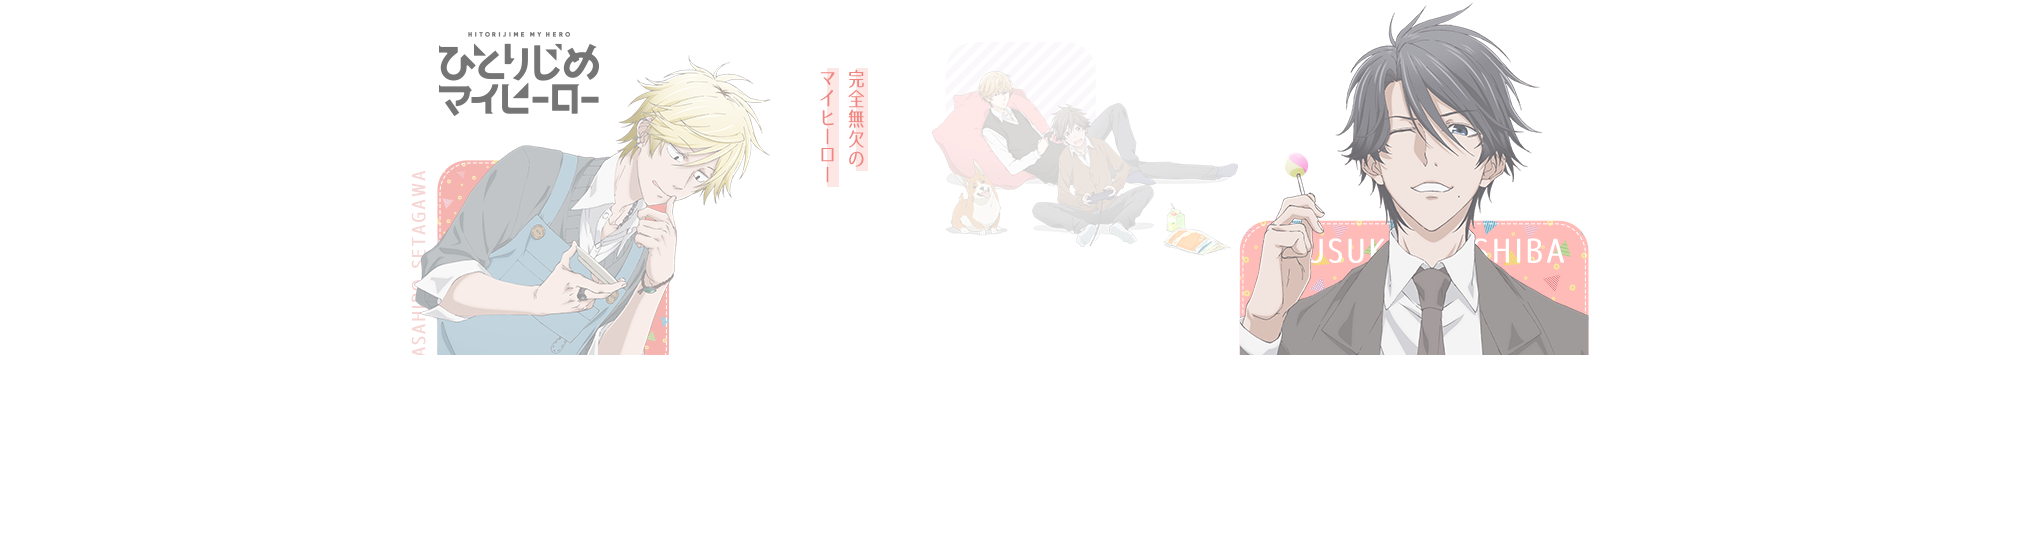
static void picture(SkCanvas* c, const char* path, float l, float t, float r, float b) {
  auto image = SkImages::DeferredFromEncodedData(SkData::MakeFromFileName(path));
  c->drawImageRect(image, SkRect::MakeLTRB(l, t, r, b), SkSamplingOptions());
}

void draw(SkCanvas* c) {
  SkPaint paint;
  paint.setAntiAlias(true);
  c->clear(0xffffffff);
  picture(c, "img_04.png", 411, 55, 771, 355);
  picture(c, "img_01.png", 439, 32, 599, 116);
  picture(c, "img_02.png", 932, 42, 1238, 256);
  picture(c, "img_03.png", 1239, 2, 1589, 355);
  picture(c, "img_05.png", 820, 68, 868, 187);
}
